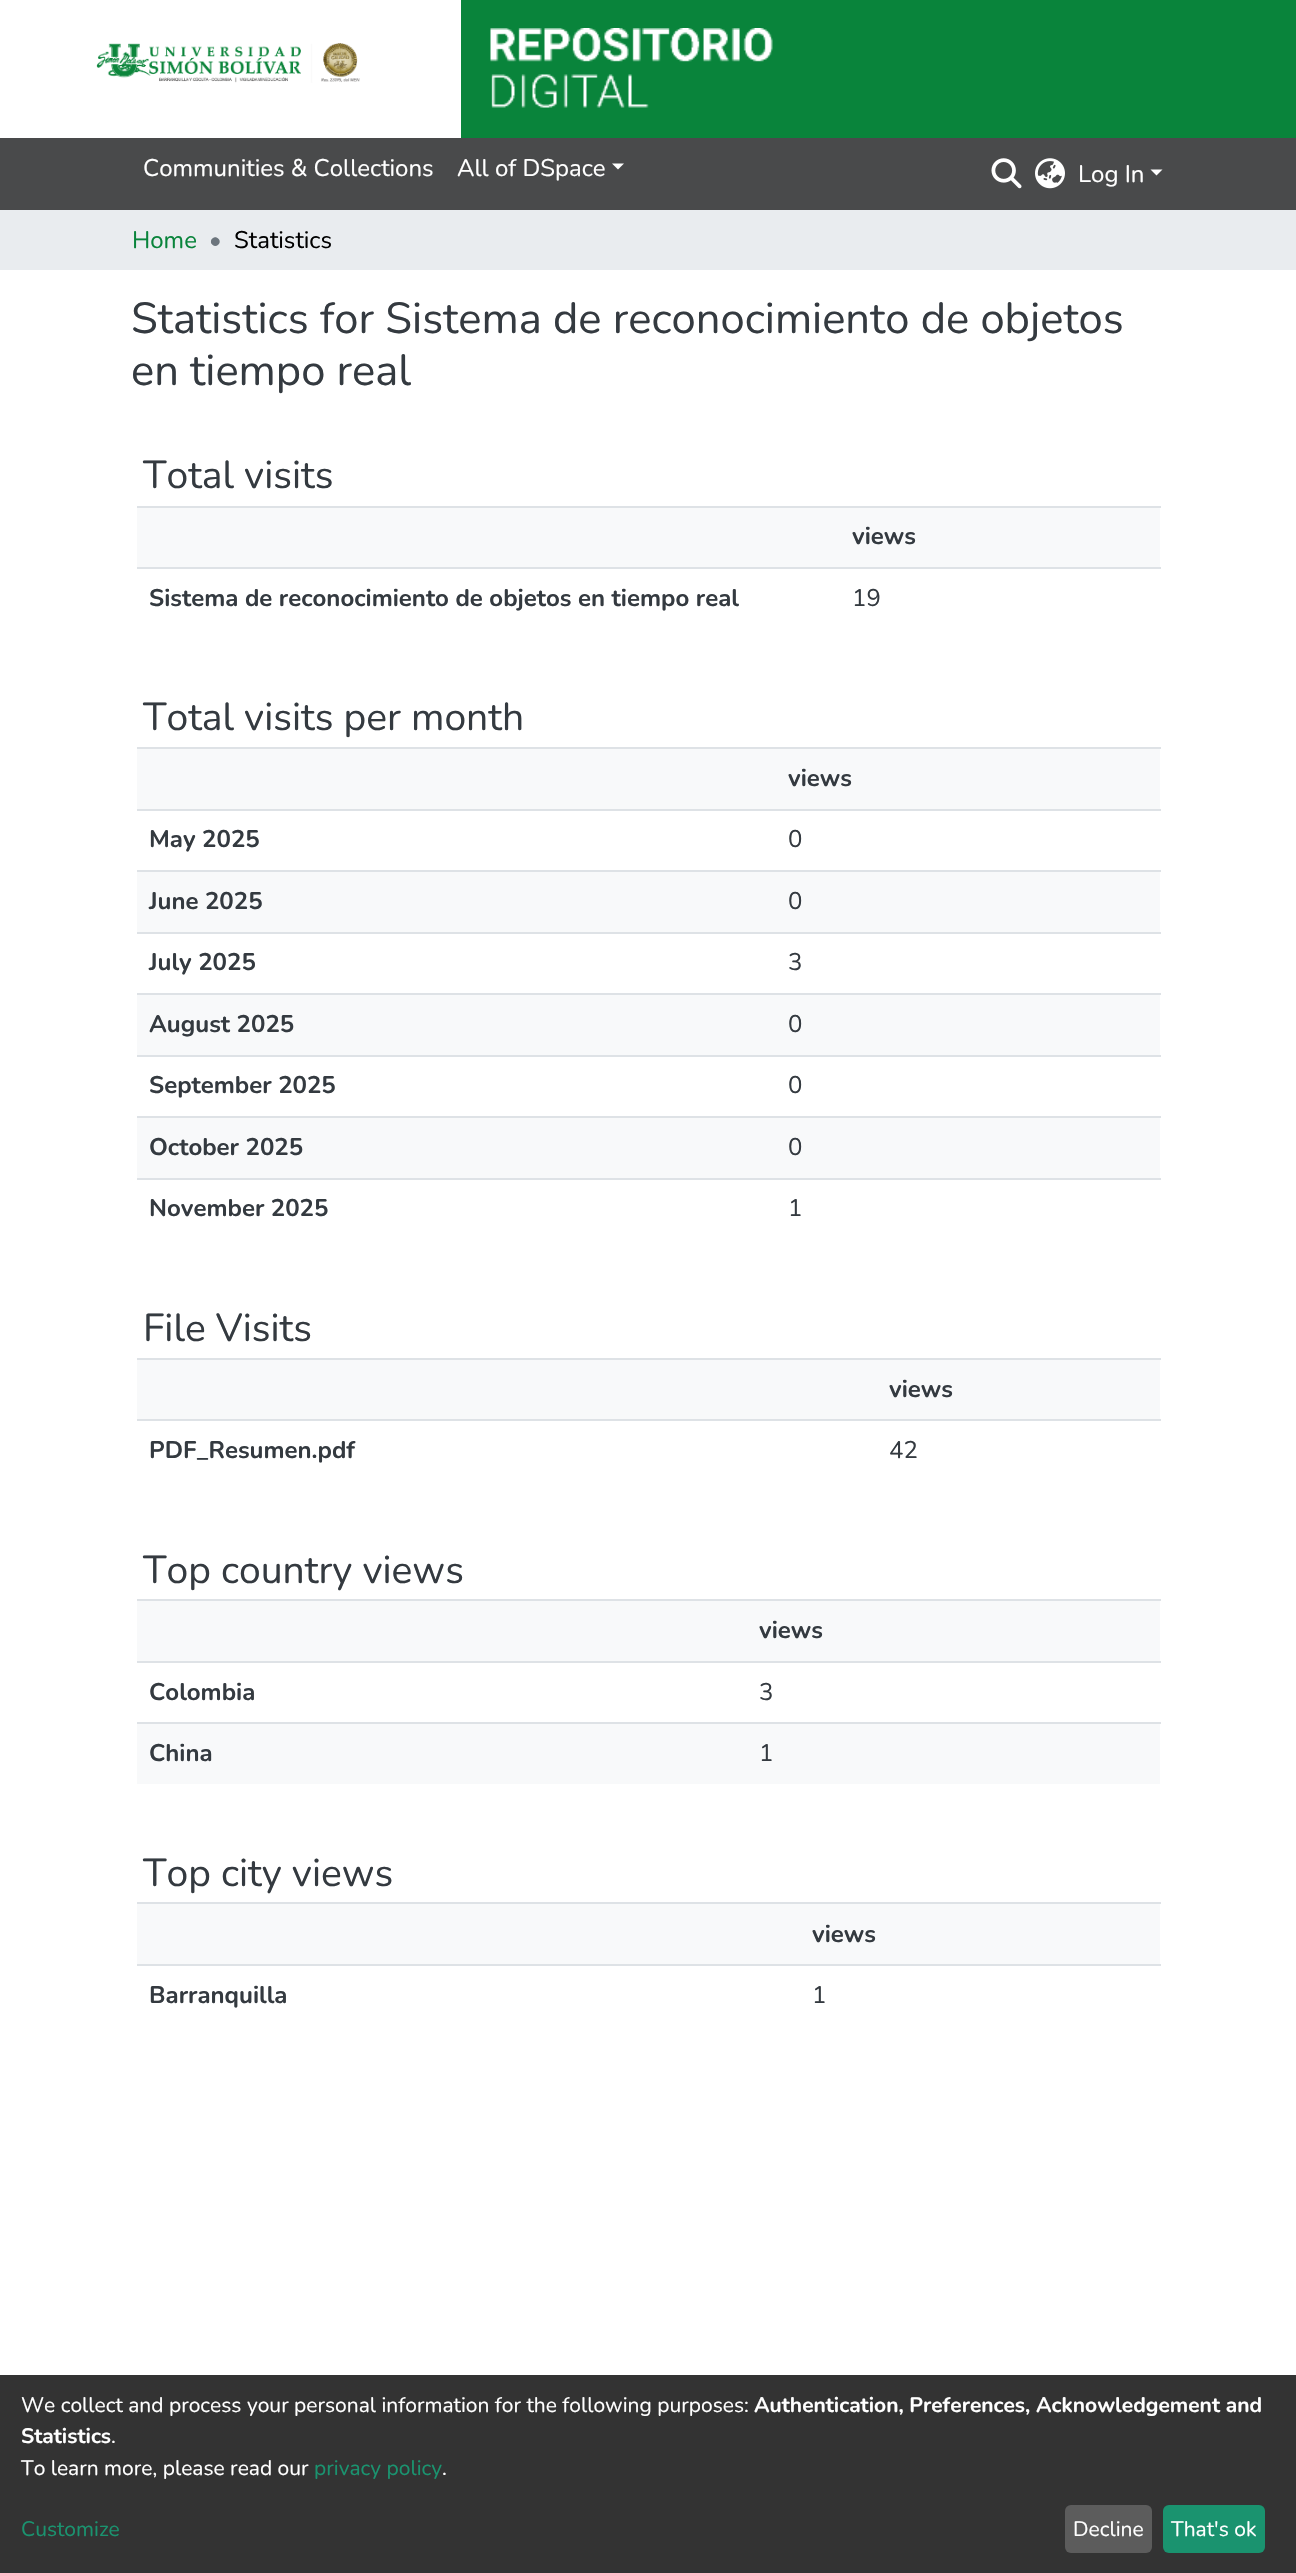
static SkFont makeFont(const char* family, int weight, float size, bool italic = false) {
  SkFontStyle style(weight, SkFontStyle::kNormal_Width,
    italic ? SkFontStyle::kItalic_Slant : SkFontStyle::kUpright_Slant);
  SkFont result(fontMgr->matchFamilyStyle(family, style), size);
  result.setSubpixel(true);
  return result;
}

static void text(SkCanvas* c, const char* s, float x, float y, const SkFont& font, SkColor color) {
  SkPaint ink(SkColor4f::FromColor(color));
  ink.setAntiAlias(true);
  c->drawString(s, x, y, font, ink);
}

static void box(SkCanvas* c, float l, float t, float r, float b, SkColor color) {
  SkPaint ink(SkColor4f::FromColor(color));
  ink.setAntiAlias(true);
  c->drawRect(SkRect::MakeLTRB(l, t, r, b), ink);
}

static void roundBox(SkCanvas* c, float l, float t, float r, float b, float radius, SkColor color) {
  SkPaint ink(SkColor4f::FromColor(color));
  ink.setAntiAlias(true);
  c->drawRoundRect(SkRect::MakeLTRB(l, t, r, b), radius, radius, ink);
}

static void picture(SkCanvas* c, const char* path, float l, float t, float r, float b) {
  auto image = SkImages::DeferredFromEncodedData(SkData::MakeFromFileName(path));
  c->drawImageRect(image, SkRect::MakeLTRB(l, t, r, b), SkSamplingOptions());
}

void draw(SkCanvas* c) {
  SkPaint paint;
  paint.setAntiAlias(true);
  c->clear(0xffffffff);
  box(c, 461, 0, 1296, 138, 0xff09843b);
  picture(c, "img_01.png", 96, 43, 360, 83);
  picture(c, "img_02.png", 490, 28, 773, 108);
  box(c, 0, 138, 1296, 210, 0xff494a4b);
  SkFont face1 = makeFont("Nunito", 400, 24);
  text(c, "Communities & Collections", 143, 176, face1, 0xffffffff);
  text(c, "All of DSpace", 457, 176, face1, 0xffffffff);
  paint.setColor(0xffffffff);
  c->drawPath(SkPathBuilder().moveTo(612, 163.5f).lineTo(624, 163.5f).lineTo(618, 169.5f).close().detach(), paint);
  picture(c, "img_03.png", 991, 158, 1022, 189);
  picture(c, "img_04.png", 1035, 158, 1065, 189);
  text(c, "Log In", 1078, 182, face1, 0xffffffff);
  c->drawPath(SkPathBuilder().moveTo(1150.5f, 169.5f).lineTo(1162.5f, 169.5f).lineTo(1156.5f, 175.5f).close().detach(), paint);
  box(c, 0, 210, 1296, 270, 0xffe9ecef);
  text(c, "Home", 132, 248, face1, 0xff09843b);
  text(c, "•", 209, 248, face1, 0xff6c757d);
  text(c, "Statistics", 234, 248, face1, 0xff000000);
  SkFont face2 = makeFont("Nunito", 400, 43.5f);
  text(c, "Statistics for Sistema de reconocimiento de objetos", 131, 333, face2, 0xff343a40);
  text(c, "en tiempo real", 131, 385, face2, 0xff343a40);
  SkFont face3 = makeFont("Nunito", 400, 39);
  text(c, "Total visits", 143, 488, face3, 0xff343a40);
  box(c, 137, 508, 1160, 567, 0xfff8f9fa);
  box(c, 137, 506, 1161, 508, 0xffdee2e6);
  SkFont face4 = makeFont("Nunito", 700, 24);
  text(c, "views", 852, 544, face4, 0xff343a40);
  text(c, "Sistema de reconocimiento de objetos en tiempo real", 149, 606, face4, 0xff343a40);
  box(c, 137, 567, 1161, 569, 0xffdee2e6);
  text(c, "19", 852, 606, face1, 0xff343a40);
  text(c, "Total visits per month", 143, 730, face3, 0xff343a40);
  box(c, 137, 749, 1160, 809, 0xfff8f9fa);
  box(c, 137, 747, 1161, 749, 0xffdee2e6);
  text(c, "views", 788, 786, face4, 0xff343a40);
  text(c, "May 2025", 149, 847, face4, 0xff343a40);
  box(c, 137, 809, 1161, 811, 0xffdee2e6);
  text(c, "0", 788, 847, face1, 0xff343a40);
  box(c, 137, 872, 1160, 932, 0xfff8f9fa);
  text(c, "June 2025", 149, 909, face4, 0xff343a40);
  box(c, 137, 870, 1161, 872, 0xffdee2e6);
  text(c, "0", 788, 909, face1, 0xff343a40);
  text(c, "July 2025", 149, 970, face4, 0xff343a40);
  box(c, 137, 932, 1161, 934, 0xffdee2e6);
  text(c, "3", 788, 970, face1, 0xff343a40);
  box(c, 137, 995, 1160, 1055, 0xfff8f9fa);
  text(c, "August 2025", 149, 1032, face4, 0xff343a40);
  box(c, 137, 993, 1161, 995, 0xffdee2e6);
  text(c, "0", 788, 1032, face1, 0xff343a40);
  text(c, "September 2025", 149, 1093, face4, 0xff343a40);
  box(c, 137, 1055, 1161, 1057, 0xffdee2e6);
  text(c, "0", 788, 1093, face1, 0xff343a40);
  box(c, 137, 1118, 1160, 1178, 0xfff8f9fa);
  text(c, "October 2025", 149, 1155, face4, 0xff343a40);
  box(c, 137, 1116, 1161, 1118, 0xffdee2e6);
  text(c, "0", 788, 1155, face1, 0xff343a40);
  text(c, "November 2025", 149, 1216, face4, 0xff343a40);
  box(c, 137, 1178, 1161, 1180, 0xffdee2e6);
  text(c, "1", 788, 1216, face1, 0xff343a40);
  text(c, "File Visits", 143, 1341, face3, 0xff343a40);
  box(c, 137, 1360, 1160, 1419, 0xfff8f9fa);
  box(c, 137, 1358, 1161, 1360, 0xffdee2e6);
  text(c, "views", 889, 1397, face4, 0xff343a40);
  text(c, "PDF_Resumen.pdf", 149, 1458, face4, 0xff343a40);
  box(c, 137, 1419, 1161, 1421, 0xffdee2e6);
  text(c, "42", 889, 1458, face1, 0xff343a40);
  text(c, "Top country views", 143, 1583, face3, 0xff343a40);
  box(c, 137, 1601, 1160, 1661, 0xfff8f9fa);
  box(c, 137, 1599, 1161, 1601, 0xffdee2e6);
  text(c, "views", 759, 1638, face4, 0xff343a40);
  text(c, "Colombia", 149, 1700, face4, 0xff343a40);
  box(c, 137, 1661, 1161, 1663, 0xffdee2e6);
  text(c, "3", 759, 1700, face1, 0xff343a40);
  box(c, 137, 1724, 1160, 1784, 0xfff8f9fa);
  text(c, "China", 149, 1761, face4, 0xff343a40);
  box(c, 137, 1722, 1161, 1724, 0xffdee2e6);
  text(c, "1", 759, 1761, face1, 0xff343a40);
  text(c, "Top city views", 143, 1886, face3, 0xff343a40);
  box(c, 137, 1904, 1160, 1964, 0xfff8f9fa);
  box(c, 137, 1902, 1161, 1904, 0xffdee2e6);
  text(c, "views", 812, 1942, face4, 0xff343a40);
  text(c, "Barranquilla", 149, 2003, face4, 0xff343a40);
  box(c, 137, 1964, 1161, 1966, 0xffdee2e6);
  text(c, "1", 812, 2003, face1, 0xff343a40);
  box(c, 0, 2375, 1296, 2573, 0xff333333);
  SkFont face5 = makeFont("Nunito", 400, 21);
  text(c, "We collect and process your personal information for the following purposes:", 21, 2412, face5, 0xffffffff);
  SkFont face6 = makeFont("Nunito", 700, 21);
  text(c, "Authentication, Preferences, Acknowledgement and", 754, 2412, face6, 0xffffffff);
  text(c, "Statistics", 21, 2443, face6, 0xffffffff);
  text(c, ".", 111, 2443, face5, 0xffffffff);
  text(c, "To learn more, please read our", 21, 2475, face5, 0xffffffff);
  text(c, "privacy policy", 314, 2475, face5, 0xff1a936f);
  text(c, ".", 442, 2475, face5, 0xffffffff);
  text(c, "Customize", 21, 2536, face5, 0xff1a936f);
  roundBox(c, 1065, 2505, 1152, 2553, 6, 0xff5c5c5c);
  text(c, "Decline", 1073, 2536, face5, 0xffffffff);
  roundBox(c, 1163, 2505, 1265, 2553, 6, 0xff1a936f);
  text(c, "That's ok", 1171, 2536, face5, 0xffffffff);
}
